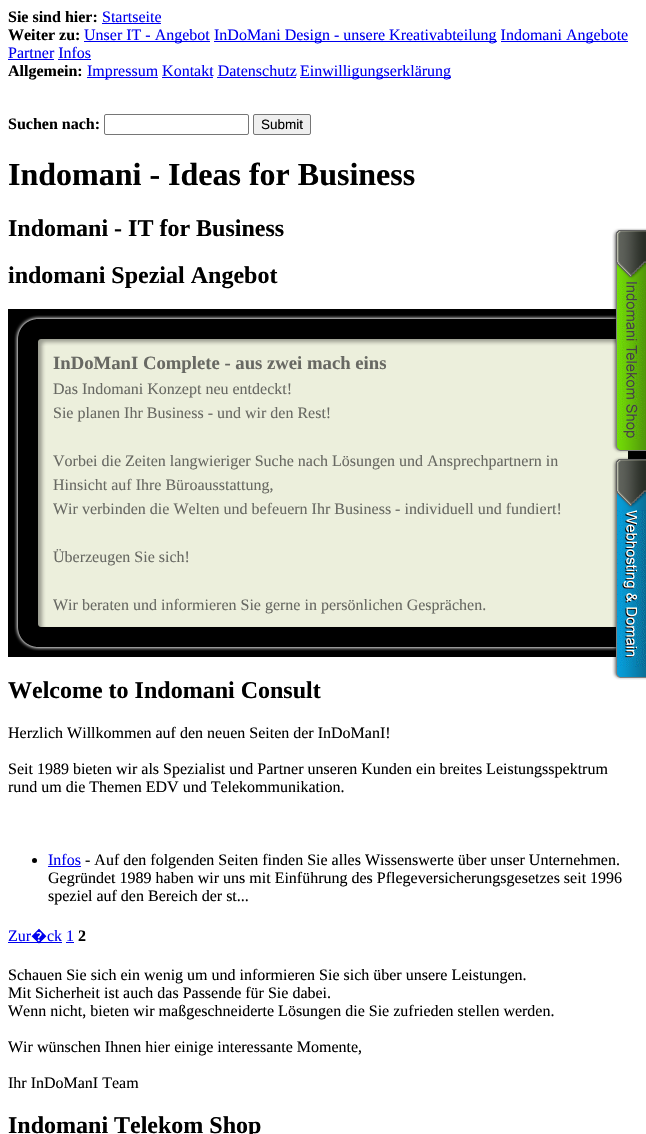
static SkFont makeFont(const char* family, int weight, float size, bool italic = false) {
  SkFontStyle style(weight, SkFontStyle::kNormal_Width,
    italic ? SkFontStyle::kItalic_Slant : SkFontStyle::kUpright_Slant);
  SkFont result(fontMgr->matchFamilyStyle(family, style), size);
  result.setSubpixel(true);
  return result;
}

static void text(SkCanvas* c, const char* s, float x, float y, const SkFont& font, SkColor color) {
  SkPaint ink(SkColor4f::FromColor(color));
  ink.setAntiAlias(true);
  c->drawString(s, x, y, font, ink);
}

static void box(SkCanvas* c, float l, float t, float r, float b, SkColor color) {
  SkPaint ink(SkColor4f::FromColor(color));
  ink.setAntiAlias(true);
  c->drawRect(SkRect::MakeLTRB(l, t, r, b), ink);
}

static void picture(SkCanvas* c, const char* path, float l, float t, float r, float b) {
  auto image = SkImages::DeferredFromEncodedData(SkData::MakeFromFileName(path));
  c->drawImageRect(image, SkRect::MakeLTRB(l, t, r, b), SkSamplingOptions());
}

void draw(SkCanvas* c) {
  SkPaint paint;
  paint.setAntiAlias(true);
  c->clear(0xffffffff);
  SkFont face1 = makeFont("Liberation Serif", 700, 16);
  text(c, "Sie sind hier:", 8, 22, face1, 0xff000000);
  SkFont face2 = makeFont("Liberation Serif", 400, 16);
  text(c, "Startseite", 102, 22, face2, 0xff0000ee);
  box(c, 102, 23, 161, 24, 0xff0000ee);
  text(c, "Weiter zu:", 8, 40, face1, 0xff000000);
  box(c, 84, 41, 210, 42, 0xff0000ee);
  text(c, "Unser IT - Angebot", 84, 40, face2, 0xff0000ee);
  box(c, 214, 41, 497, 42, 0xff0000ee);
  text(c, "InDoMani Design - unsere Kreativabteilung Indomani", 214, 40, face2, 0xff0000ee);
  box(c, 501, 41, 628, 42, 0xff0000ee);
  text(c, "Angebote", 566, 40, face2, 0xff0000ee);
  text(c, "Partner Infos", 8, 58, face2, 0xff0000ee);
  box(c, 8, 59, 54, 60, 0xff0000ee);
  box(c, 58, 59, 91, 60, 0xff0000ee);
  text(c, "Allgemein:", 8, 76, face1, 0xff000000);
  box(c, 87, 77, 158, 78, 0xff0000ee);
  text(c, "Impressum Kontakt Datenschutz", 87, 76, face2, 0xff0000ee);
  box(c, 300, 77, 451, 78, 0xff0000ee);
  text(c, "Einwilligungserklärung", 300, 76, face2, 0xff0000ee);
  box(c, 162, 77, 213, 78, 0xff0000ee);
  box(c, 217, 77, 296, 78, 0xff0000ee);
  text(c, "Suchen nach:", 8, 129, face1, 0xff000000);
  paint.setStyle(SkPaint::kStroke_Style);
  paint.setStrokeWidth(1);
  paint.setColor(0xff767676);
  c->drawRoundRect(SkRect::MakeLTRB(104.5f, 114.5f, 248.5f, 134.5f), 1.5f, 1.5f, paint);
  paint.setStyle(SkPaint::kFill_Style);
  paint.setColor(0xffefefef);
  c->drawRoundRect(SkRect::MakeLTRB(253.5f, 114.5f, 310.5f, 134.5f), 1.5f, 1.5f, paint);
  paint.setStyle(SkPaint::kStroke_Style);
  paint.setColor(0xff767676);
  c->drawRoundRect(SkRect::MakeLTRB(253.5f, 114.5f, 310.5f, 134.5f), 1.5f, 1.5f, paint);
  SkFont face3 = makeFont("Liberation Sans", 400, 13.5f);
  text(c, "Submit", 261, 129, face3, 0xff000000);
  SkFont face4 = makeFont("Liberation Serif", 700, 32);
  text(c, "Indomani - Ideas for Business", 8, 185, face4, 0xff000000);
  SkFont face5 = makeFont("Liberation Serif", 700, 24);
  text(c, "Indomani - IT for Business", 8, 236, face5, 0xff000000);
  picture(c, "img_07.png", 8, 309, 646, 657);
  picture(c, "img_08.png", 14, 309, 616, 346);
  picture(c, "img_01.png", 612, 228, 646, 440);
  picture(c, "img_02.png", 617, 281, 646, 440);
  picture(c, "img_03.png", 612, 440, 646, 453);
  picture(c, "img_09.png", 14, 624, 616, 657);
  picture(c, "img_04.png", 612, 457, 646, 667);
  picture(c, "img_05.png", 617, 510, 646, 667);
  picture(c, "img_06.png", 612, 667, 646, 680);
  text(c, "indomani Spezial Angebot", 8, 283, face5, 0xff000000);
  SkFont face6 = makeFont("Liberation Serif", 700, 18.7f);
  text(c, "InDoManI Complete - aus zwei mach eins", 53, 369, face6, 0xff686963);
  text(c, "Das Indomani Konzept neu entdeckt!", 53, 394, face2, 0xff686963);
  text(c, "Sie planen Ihr Business - und wir den Rest!", 53, 418, face2, 0xff686963);
  text(c, "Vorbei die Zeiten langwieriger Suche nach Lösungen und Ansprechpartnern in", 53, 466, face2, 0xff686963);
  text(c, "Hinsicht auf Ihre Büroausstattung,", 53, 490, face2, 0xff686963);
  text(c, "Wir verbinden die Welten und befeuern Ihr Business - individuell und fundiert!", 53, 514, face2, 0xff686963);
  text(c, "Überzeugen Sie sich!", 53, 562, face2, 0xff686963);
  text(c, "Wir beraten und informieren Sie gerne in persönlichen Gesprächen.", 53, 610, face2, 0xff686963);
  text(c, "Welcome to Indomani Consult", 8, 698, face5, 0xff000000);
  text(c, "Herzlich Willkommen auf den neuen Seiten der InDoManI!", 8, 738, face2, 0xff000000);
  text(c, "Seit 1989 bieten wir als Spezialist und Partner unseren Kunden ein breites Leistungsspektrum", 8, 774, face2, 0xff000000);
  text(c, "rund um die Themen EDV und Telekommunikation.", 8, 792, face2, 0xff000000);
  paint.setStyle(SkPaint::kFill_Style);
  paint.setColor(0xff000000);
  c->drawCircle(34.5f, 860.5f, 2.5f, paint);
  text(c, "Infos", 48, 865, face2, 0xff0000ee);
  box(c, 48, 866, 81, 867, 0xff0000ee);
  text(c, "- Auf den folgenden Seiten finden Sie alles Wissenswerte über unser Unternehmen.", 85, 865, face2, 0xff000000);
  text(c, "Gegründet 1989 haben wir uns mit Einführung des Pflegeversicherungsgesetzes seit 1996", 48, 883, face2, 0xff000000);
  text(c, "speziel auf den Bereich der st...", 48, 901, face2, 0xff000000);
  text(c, "Zur", 8, 941, face2, 0xff0000ee);
  box(c, 8, 942, 62, 943, 0xff0000ee);
  SkFont face7 = makeFont("Noto Sans", 400, 16);
  text(c, "�", 31, 941, face7, 0xff0000ee);
  text(c, "ck 1", 47, 941, face2, 0xff0000ee);
  text(c, "2", 78, 941, face1, 0xff000000);
  box(c, 66, 942, 74, 943, 0xff0000ee);
  text(c, "Schauen Sie sich ein wenig um und informieren Sie sich über unsere Leistungen.", 8, 980, face2, 0xff000000);
  text(c, "Mit Sicherheit ist auch das Passende für Sie dabei.", 8, 998, face2, 0xff000000);
  text(c, "Wenn nicht, bieten wir maßgeschneiderte Lösungen die Sie zufrieden stellen werden.", 8, 1016, face2, 0xff000000);
  text(c, "Wir wünschen Ihnen hier einige interessante Momente,", 8, 1052, face2, 0xff000000);
  text(c, "Ihr InDoManI Team", 8, 1088, face2, 0xff000000);
  text(c, "Indomani Telekom Shop", 8, 1133, face5, 0xff000000);
}
